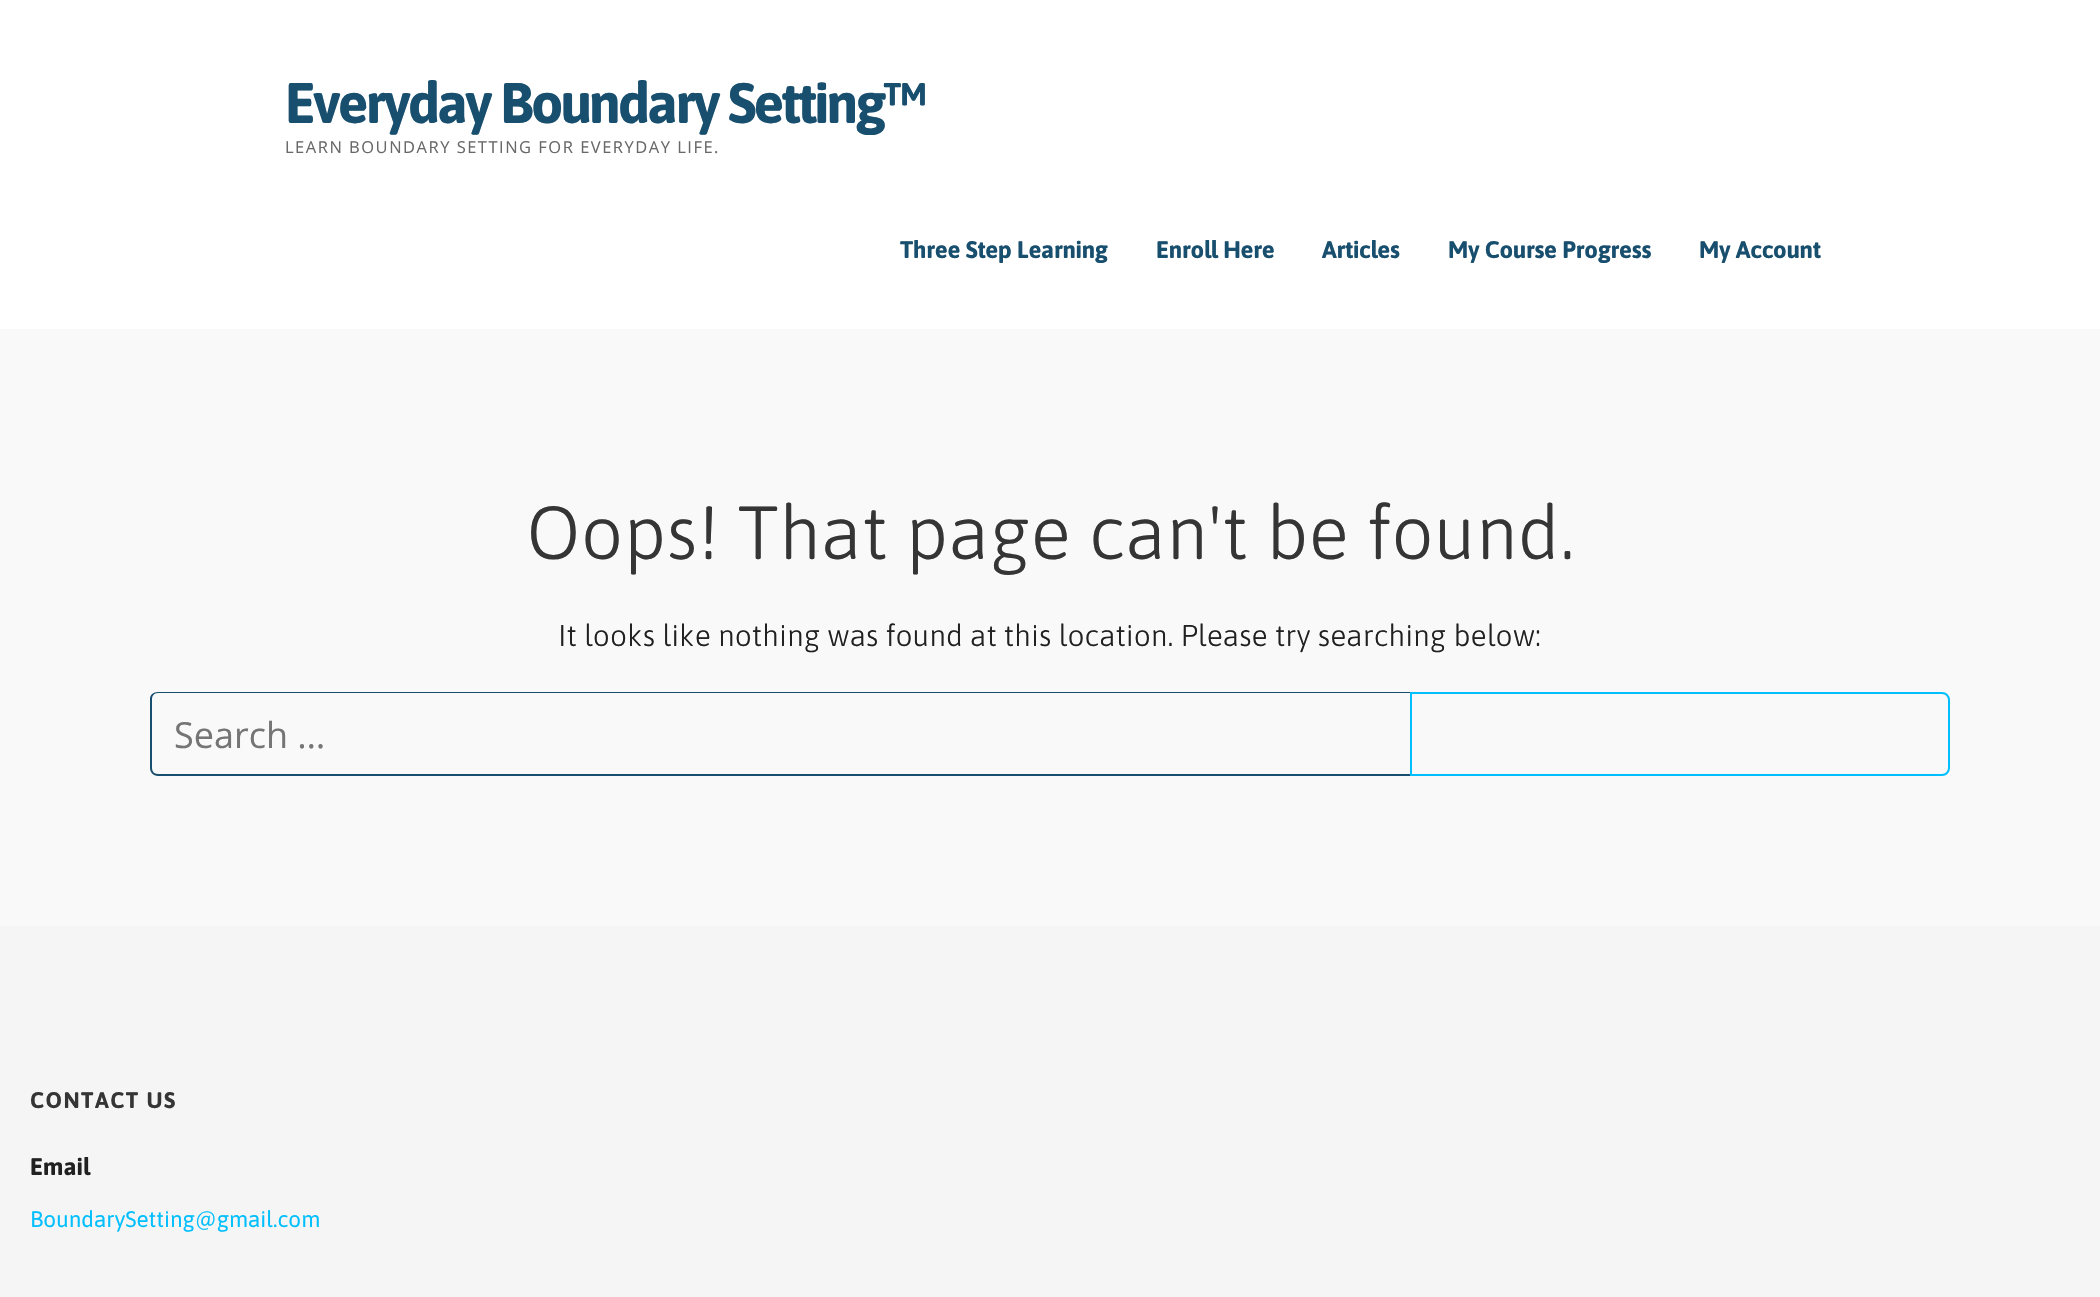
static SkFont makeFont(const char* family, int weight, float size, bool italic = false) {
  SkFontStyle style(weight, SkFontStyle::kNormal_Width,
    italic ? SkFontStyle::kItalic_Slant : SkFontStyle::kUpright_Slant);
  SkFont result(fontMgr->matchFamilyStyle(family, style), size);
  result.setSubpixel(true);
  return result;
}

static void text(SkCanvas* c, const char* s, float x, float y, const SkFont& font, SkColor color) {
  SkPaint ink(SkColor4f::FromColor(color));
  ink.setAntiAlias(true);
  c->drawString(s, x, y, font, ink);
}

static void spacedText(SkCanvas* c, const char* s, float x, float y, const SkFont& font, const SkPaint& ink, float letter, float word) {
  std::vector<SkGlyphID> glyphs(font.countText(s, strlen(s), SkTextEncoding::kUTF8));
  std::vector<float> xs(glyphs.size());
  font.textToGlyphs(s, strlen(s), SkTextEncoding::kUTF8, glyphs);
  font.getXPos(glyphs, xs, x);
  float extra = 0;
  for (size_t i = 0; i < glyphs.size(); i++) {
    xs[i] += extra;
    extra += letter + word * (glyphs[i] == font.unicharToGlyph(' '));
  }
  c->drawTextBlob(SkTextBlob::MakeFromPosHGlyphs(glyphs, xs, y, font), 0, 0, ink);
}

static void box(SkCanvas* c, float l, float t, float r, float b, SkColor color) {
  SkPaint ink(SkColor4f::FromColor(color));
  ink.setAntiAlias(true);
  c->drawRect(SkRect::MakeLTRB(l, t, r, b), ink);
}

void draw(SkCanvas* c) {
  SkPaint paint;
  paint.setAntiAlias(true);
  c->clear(0xffffffff);
  SkFont face1 = makeFont("Asap", 700, 57);
  paint.setColor(0xff194f6e);
  spacedText(c, "Everyday Boundary Setting™", 285, 123, face1, paint, -3, 0);
  SkFont face2 = makeFont("Open Sans", 400, 16.5f);
  paint.setColor(0xff686868);
  spacedText(c, "LEARN BOUNDARY SETTING FOR EVERYDAY LIFE.", 285, 153, face2, paint, 1.5f, 0);
  SkFont face3 = makeFont("Asap", 700, 24);
  paint.setColor(0xff194f6e);
  spacedText(c, "Three Step Learning", 900, 258, face3, paint, -0.25f, 0);
  spacedText(c, "Enroll Here", 1156, 258, face3, paint, -0.25f, 0);
  spacedText(c, "Articles", 1322, 258, face3, paint, -0.25f, 0);
  spacedText(c, "My Course Progress", 1448, 258, face3, paint, -0.25f, 0);
  spacedText(c, "My Account", 1699, 258, face3, paint, -0.25f, 0);
  box(c, 0, 329, 2100, 926, 0xfff9f9f9);
  SkFont face4 = makeFont("Asap", 300, 75);
  text(c, "Oops! That page can't be found.", 526, 559, face4, 0xff353535);
  SkFont face5 = makeFont("Asap", 300, 30);
  text(c, "It looks like nothing was found at this location. Please try searching below:", 558, 646, face5, 0xff212121);
  c->drawPath(SkPathBuilder(SkPathFillType::kEvenOdd).moveTo(158, 692).lineTo(1410, 692).lineTo(1410, 776).lineTo(158, 776).cubicTo(153, 776, 150, 772, 150, 768).lineTo(150, 699).cubicTo(150, 695, 153, 692, 158, 692).close().moveTo(158, 693).lineTo(1410, 693).lineTo(1410, 774).lineTo(158, 774).cubicTo(154, 774, 152, 771, 152, 768).lineTo(152, 699).cubicTo(152, 696, 154, 693, 158, 693).close().detach(), paint);
  SkFont face6 = makeFont("Open Sans", 400, 36);
  text(c, "Search …", 174, 748, face6, 0xff757575);
  paint.setStyle(SkPaint::kStroke_Style);
  paint.setStrokeWidth(2);
  paint.setColor(0xff00bfff);
  c->drawPath(SkPathBuilder().moveTo(1411, 693).lineTo(1942, 693).cubicTo(1946, 693, 1949, 696, 1949, 700).lineTo(1949, 768).cubicTo(1949, 772, 1946, 775, 1942, 775).lineTo(1411, 775).close().detach(), paint);
  box(c, 0, 926, 2100, 1297, 0xfff5f5f5);
  SkFont face7 = makeFont("Asap", 700, 22.5f);
  paint.setStyle(SkPaint::kFill_Style);
  paint.setColor(0xff353535);
  spacedText(c, "CONTACT US", 30, 1108, face7, paint, 1.5f, 0);
  text(c, "Email", 30, 1175, face3, 0xff212121);
  SkFont face8 = makeFont("Asap", 400, 22.5f);
  text(c, "BoundarySetting@gmail.com", 30, 1227, face8, 0xff00bfff);
}
